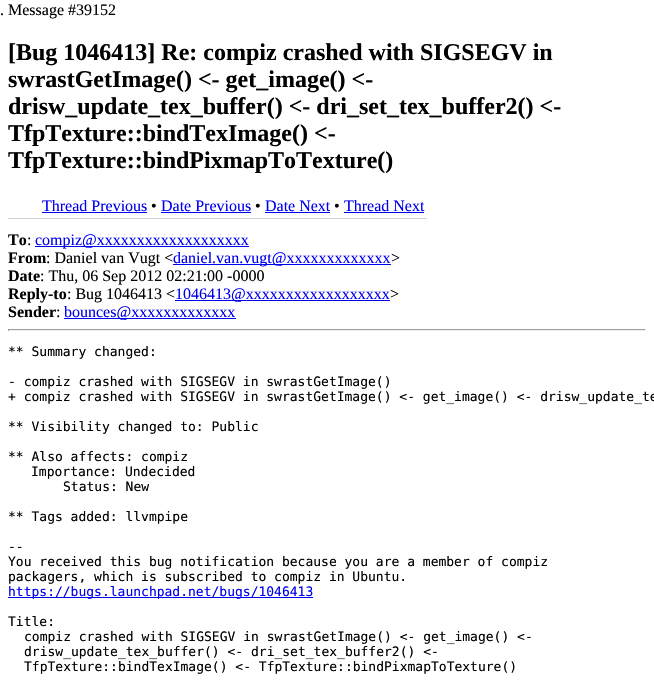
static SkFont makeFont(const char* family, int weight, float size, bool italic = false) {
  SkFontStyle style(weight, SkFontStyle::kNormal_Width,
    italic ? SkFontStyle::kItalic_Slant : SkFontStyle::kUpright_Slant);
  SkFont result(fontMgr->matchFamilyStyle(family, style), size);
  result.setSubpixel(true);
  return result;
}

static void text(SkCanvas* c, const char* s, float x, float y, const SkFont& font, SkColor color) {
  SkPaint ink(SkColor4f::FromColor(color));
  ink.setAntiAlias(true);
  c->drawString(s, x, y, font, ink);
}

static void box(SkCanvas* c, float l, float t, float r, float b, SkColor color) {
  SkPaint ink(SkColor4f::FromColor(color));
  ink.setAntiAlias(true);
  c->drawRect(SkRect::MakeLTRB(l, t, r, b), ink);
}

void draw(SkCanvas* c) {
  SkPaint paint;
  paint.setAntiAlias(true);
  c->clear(0xffffffff);
  SkFont face1 = makeFont("Liberation Serif", 400, 16);
  text(c, ". Message #39152", 0, 15, face1, 0xff000000);
  SkFont face2 = makeFont("Liberation Serif", 700, 24);
  text(c, "[Bug 1046413] Re: compiz crashed with SIGSEGV in", 8, 60, face2, 0xff000000);
  text(c, "swrastGetImage() <- get_image() <-", 8, 87, face2, 0xff000000);
  text(c, "drisw_update_tex_buffer() <- dri_set_tex_buffer2() <-", 8, 114, face2, 0xff000000);
  text(c, "TfpTexture::bindTexImage() <-", 8, 141, face2, 0xff000000);
  text(c, "TfpTexture::bindPixmapToTexture()", 8, 168, face2, 0xff000000);
  box(c, 8, 218, 427, 219, 0xffd2d2d2);
  text(c, "Thread Previous", 42, 211, face1, 0xff0000ee);
  box(c, 42, 212, 147, 213, 0xff0000ee);
  text(c, "•", 151, 211, face1, 0xff000000);
  text(c, "Date Previous", 161, 211, face1, 0xff0000ee);
  box(c, 161, 212, 251, 213, 0xff0000ee);
  text(c, "•", 255, 211, face1, 0xff000000);
  text(c, "Date Next", 265, 211, face1, 0xff0000ee);
  box(c, 265, 212, 330, 213, 0xff0000ee);
  text(c, "•", 334, 211, face1, 0xff000000);
  text(c, "Thread Next", 344, 211, face1, 0xff0000ee);
  box(c, 344, 212, 424, 213, 0xff0000ee);
  SkFont face3 = makeFont("Liberation Serif", 700, 16);
  text(c, "To", 8, 245, face3, 0xff000000);
  text(c, ":", 27, 245, face1, 0xff000000);
  box(c, 35, 246, 249, 247, 0xff0000ee);
  text(c, "compiz@xxxxxxxxxxxxxxxxxxx", 35, 245, face1, 0xff0000ee);
  text(c, "From", 8, 263, face3, 0xff000000);
  text(c, ": Daniel van Vugt <", 46, 263, face1, 0xff000000);
  box(c, 173, 264, 391, 265, 0xff0000ee);
  text(c, "daniel.van.vugt@xxxxxxxxxxxxx", 173, 263, face1, 0xff0000ee);
  text(c, ">", 391, 263, face1, 0xff000000);
  text(c, "Date", 8, 281, face3, 0xff000000);
  text(c, ": Thu, 06 Sep 2012 02:21:00 -0000", 40, 281, face1, 0xff000000);
  text(c, "Reply-to", 8, 299, face3, 0xff000000);
  text(c, ": Bug 1046413 <", 67, 299, face1, 0xff000000);
  box(c, 175, 300, 390, 301, 0xff0000ee);
  text(c, "1046413@xxxxxxxxxxxxxxxxxx", 175, 299, face1, 0xff0000ee);
  text(c, ">", 390, 299, face1, 0xff000000);
  text(c, "Sender", 8, 317, face3, 0xff000000);
  text(c, ":", 56, 317, face1, 0xff000000);
  box(c, 64, 318, 236, 319, 0xff0000ee);
  text(c, "bounces@xxxxxxxxxxxxx", 64, 317, face1, 0xff0000ee);
  box(c, 8, 329, 646, 330, 0xff9f9f9f);
  box(c, 645, 329, 646, 331, 0xffeeeeee);
  box(c, 8, 330, 646, 331, 0xffeeeeee);
  box(c, 8, 329, 9, 331, 0xff9f9f9f);
  SkFont face4 = makeFont("DejaVu Sans Mono", 400, 13);
  text(c, "** Summary changed:", 8, 356, face4, 0xff000000);
  text(c, "- compiz crashed with SIGSEGV in swrastGetImage()", 8, 386, face4, 0xff000000);
  text(c, "+ compiz crashed with SIGSEGV in swrastGetImage() <- get_image() <- drisw_update_te", 8, 401, face4, 0xff000000);
  text(c, "** Visibility changed to: Public", 8, 431, face4, 0xff000000);
  text(c, "** Also affects: compiz", 8, 461, face4, 0xff000000);
  text(c, "Importance: Undecided", 31, 476, face4, 0xff000000);
  text(c, "Status: New", 63, 491, face4, 0xff000000);
  text(c, "** Tags added: llvmpipe", 8, 521, face4, 0xff000000);
  text(c, "--", 8, 551, face4, 0xff000000);
  text(c, "You received this bug notification because you are a member of compiz", 8, 566, face4, 0xff000000);
  text(c, "packagers, which is subscribed to compiz in Ubuntu.", 8, 581, face4, 0xff000000);
  box(c, 8, 597, 313, 598, 0xff0000ee);
  text(c, "https://bugs.launchpad.net/bugs/1046413", 8, 596, face4, 0xff0000ee);
  text(c, "Title:", 8, 626, face4, 0xff000000);
  text(c, "compiz crashed with SIGSEGV in swrastGetImage() <- get_image() <-", 24, 641, face4, 0xff000000);
  text(c, "drisw_update_tex_buffer() <- dri_set_tex_buffer2() <-", 24, 656, face4, 0xff000000);
  text(c, "TfpTexture::bindTexImage() <- TfpTexture::bindPixmapToTexture()", 24, 671, face4, 0xff000000);
}
